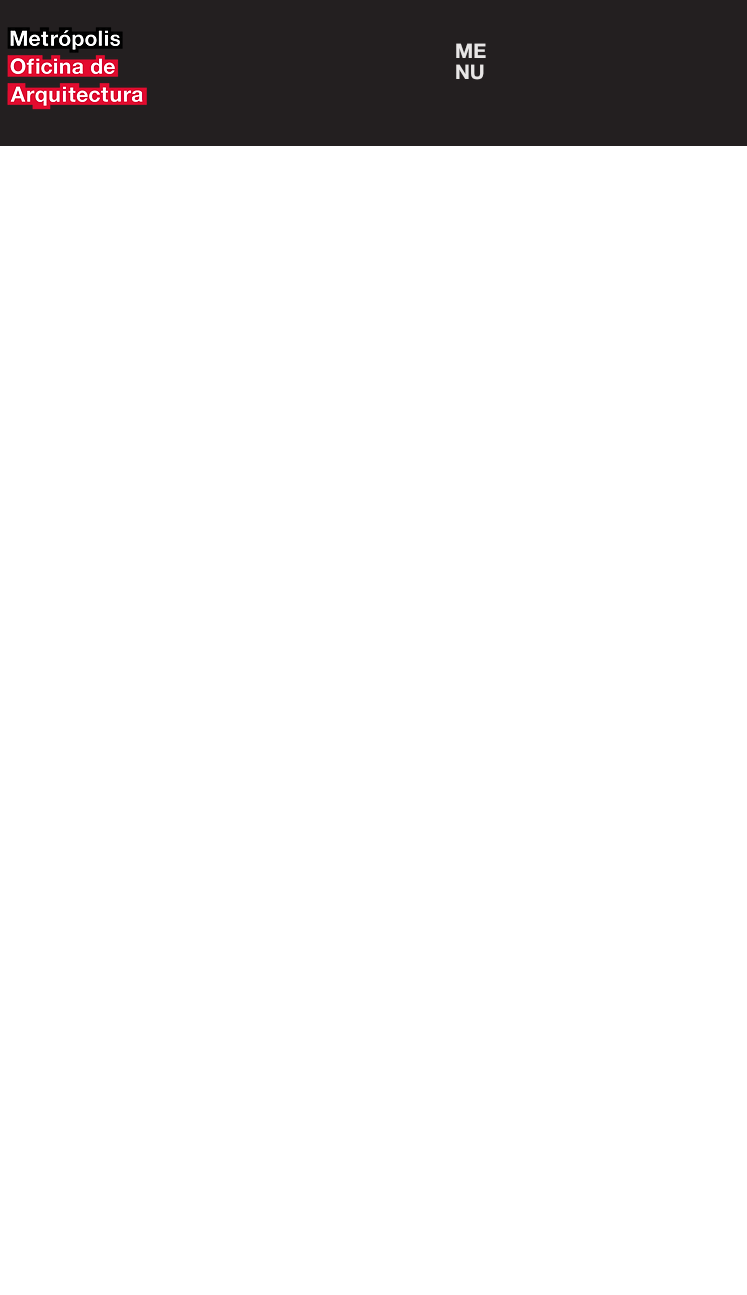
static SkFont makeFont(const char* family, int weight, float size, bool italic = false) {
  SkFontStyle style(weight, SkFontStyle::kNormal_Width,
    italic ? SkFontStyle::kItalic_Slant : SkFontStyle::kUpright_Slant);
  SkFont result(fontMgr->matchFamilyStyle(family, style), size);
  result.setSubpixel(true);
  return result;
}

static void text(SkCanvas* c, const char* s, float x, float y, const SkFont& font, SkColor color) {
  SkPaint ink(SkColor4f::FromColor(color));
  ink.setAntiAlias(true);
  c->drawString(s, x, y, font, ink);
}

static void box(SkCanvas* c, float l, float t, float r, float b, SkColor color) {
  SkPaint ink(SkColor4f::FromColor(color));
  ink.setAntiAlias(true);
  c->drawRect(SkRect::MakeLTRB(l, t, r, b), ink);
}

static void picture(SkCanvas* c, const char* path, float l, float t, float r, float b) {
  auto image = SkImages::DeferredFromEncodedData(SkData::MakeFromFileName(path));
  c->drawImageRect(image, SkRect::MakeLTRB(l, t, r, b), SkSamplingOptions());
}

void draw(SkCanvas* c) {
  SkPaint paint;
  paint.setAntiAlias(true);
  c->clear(0xffffffff);
  box(c, 0, 0, 747, 146, 0xff231f20);
  picture(c, "img_01.png", 7, 27, 147, 110);
  SkFont face1 = makeFont("Helvetica Neue", 700, 20);
  text(c, "ME", 455, 58, face1, 0xffe8e6e6);
  text(c, "NU", 455, 79, face1, 0xffe8e6e6);
}
